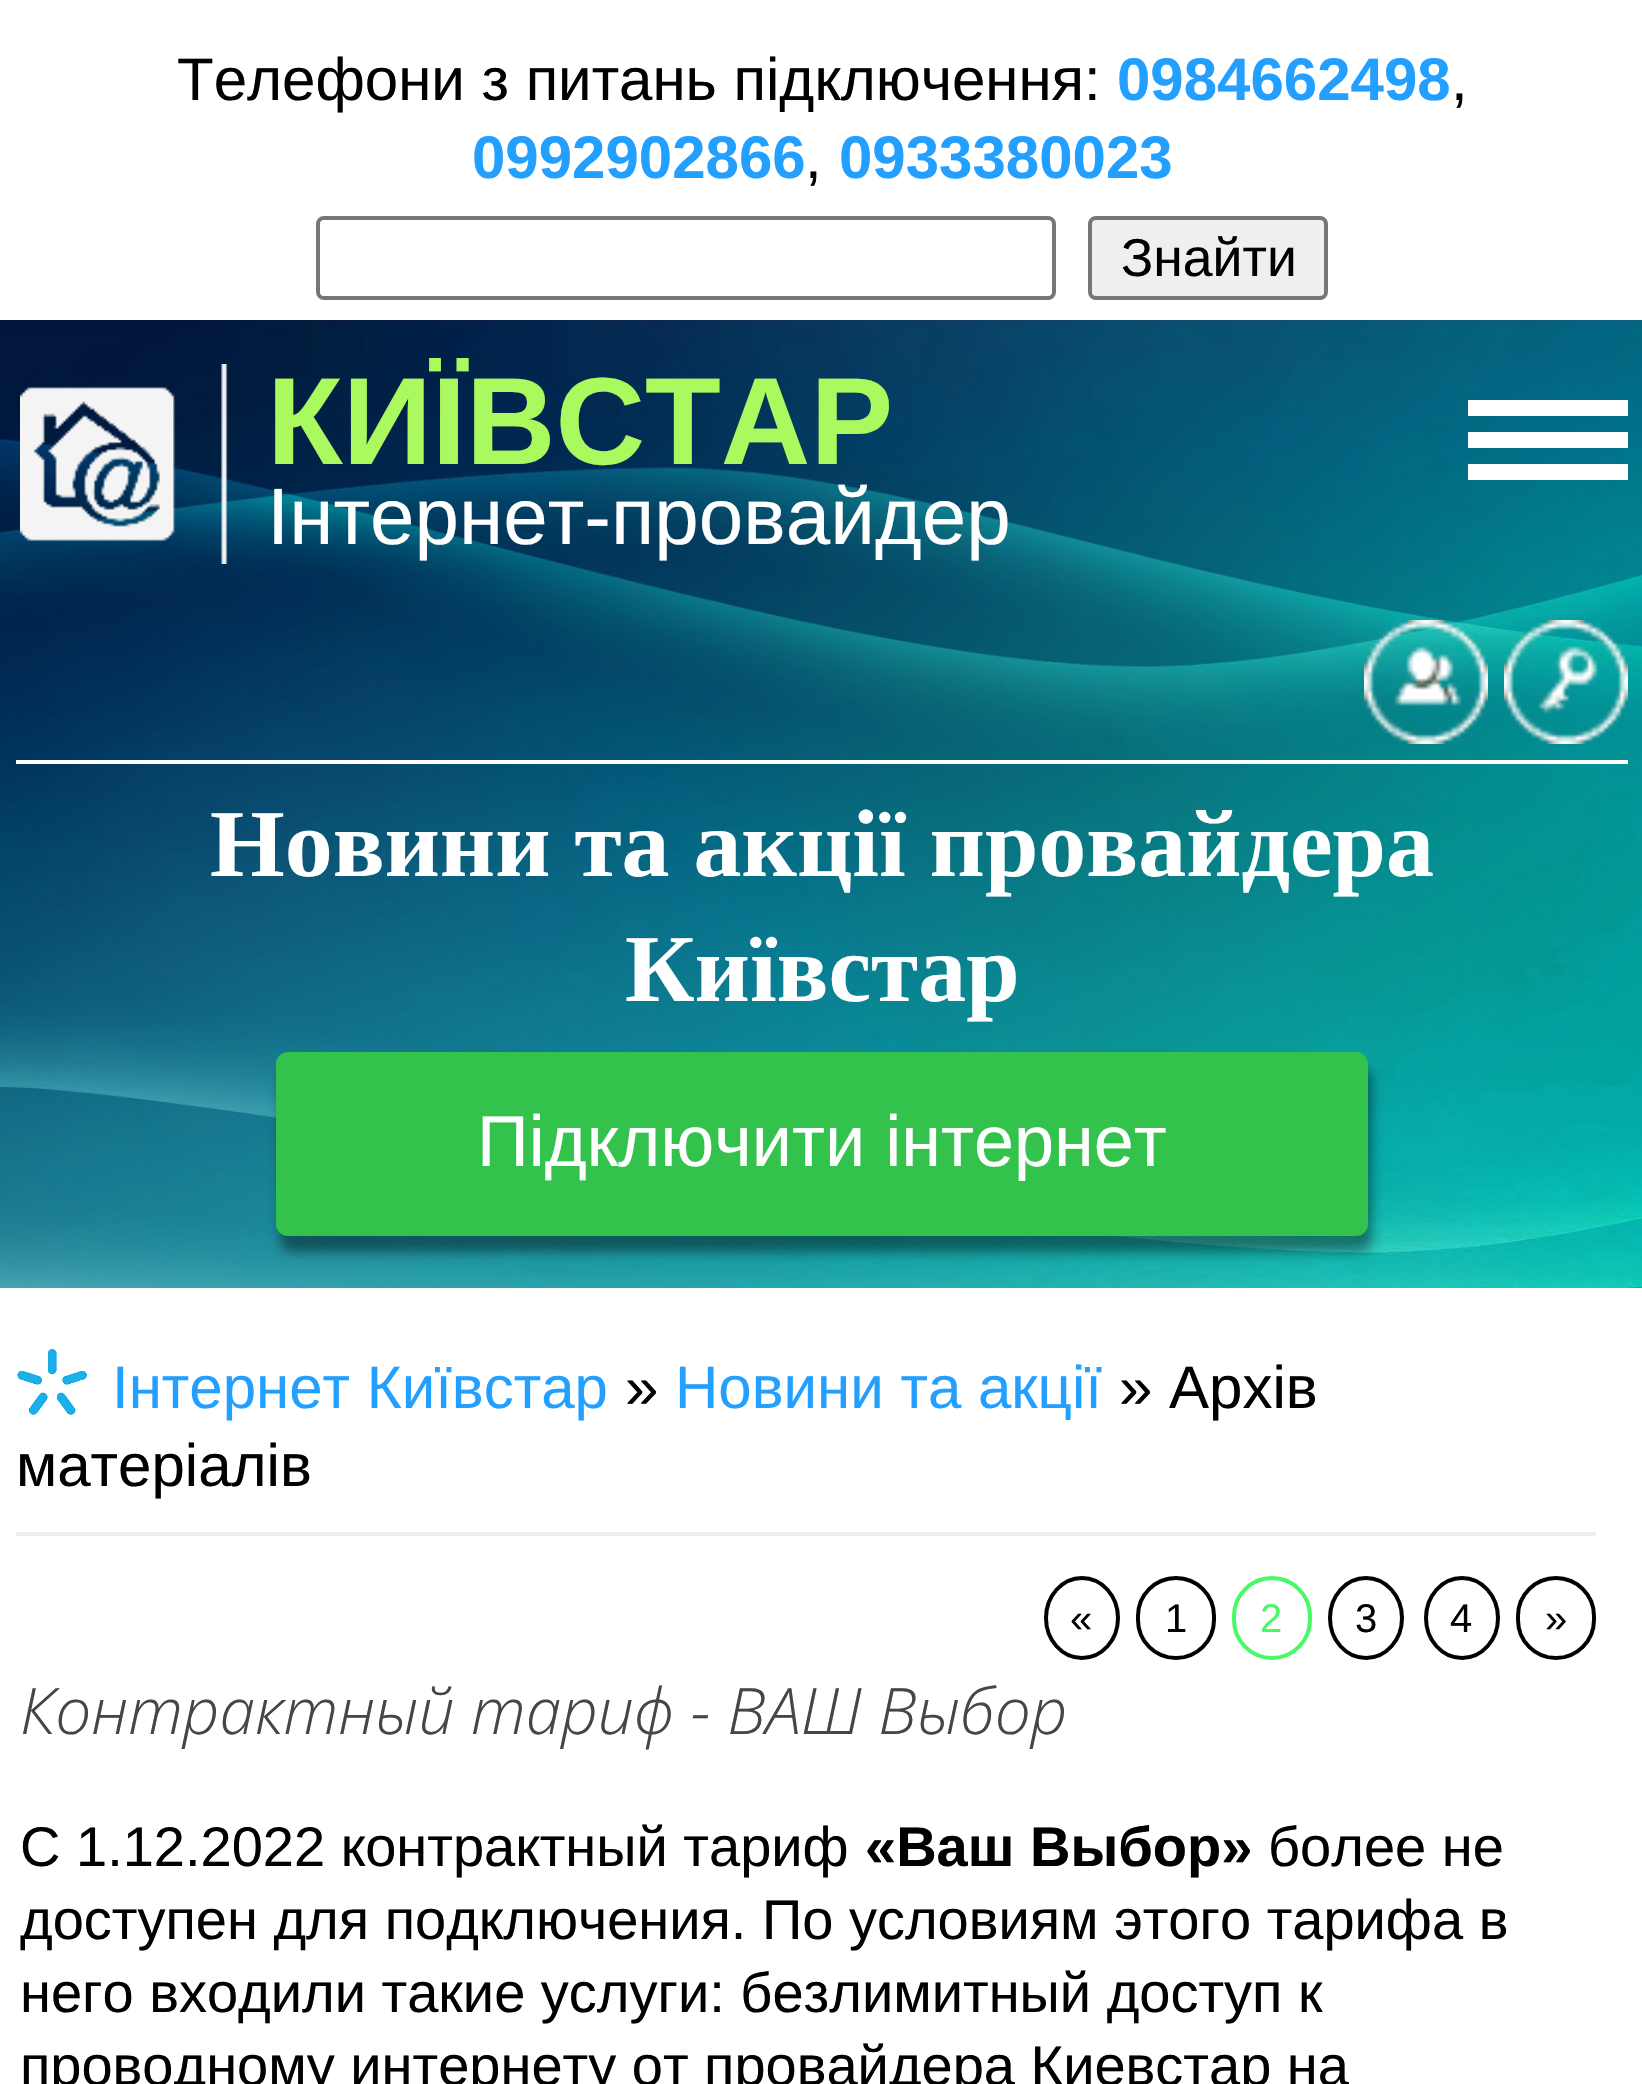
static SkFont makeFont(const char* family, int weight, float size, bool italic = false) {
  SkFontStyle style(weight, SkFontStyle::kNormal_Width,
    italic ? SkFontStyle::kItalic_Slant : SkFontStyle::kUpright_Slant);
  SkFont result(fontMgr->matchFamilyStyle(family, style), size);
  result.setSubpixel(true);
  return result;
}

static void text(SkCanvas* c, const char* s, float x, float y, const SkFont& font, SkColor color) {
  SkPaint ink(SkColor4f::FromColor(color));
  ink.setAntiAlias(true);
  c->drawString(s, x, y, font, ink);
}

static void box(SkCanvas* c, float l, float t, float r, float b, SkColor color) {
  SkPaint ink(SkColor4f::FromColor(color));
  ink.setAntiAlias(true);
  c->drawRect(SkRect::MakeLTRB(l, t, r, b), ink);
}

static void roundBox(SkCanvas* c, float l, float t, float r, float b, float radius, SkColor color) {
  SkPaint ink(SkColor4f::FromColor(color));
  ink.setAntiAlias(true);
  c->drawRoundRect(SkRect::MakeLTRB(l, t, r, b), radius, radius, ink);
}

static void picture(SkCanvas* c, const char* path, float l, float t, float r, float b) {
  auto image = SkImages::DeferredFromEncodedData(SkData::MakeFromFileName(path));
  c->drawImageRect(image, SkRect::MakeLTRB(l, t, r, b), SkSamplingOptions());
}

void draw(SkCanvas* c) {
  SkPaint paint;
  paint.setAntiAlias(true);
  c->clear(0xffffffff);
  SkFont face1 = makeFont("Liberation Sans", 400, 60);
  text(c, "Телефони з питань підключення:", 177, 100, face1, 0xff000000);
  SkFont face2 = makeFont("Liberation Sans", 700, 60);
  text(c, "0984662498", 1117, 100, face2, 0xff229fff);
  text(c, ",", 1451, 100, face1, 0xff000000);
  text(c, "0992902866", 472, 178, face2, 0xff229fff);
  text(c, ",", 805, 178, face1, 0xff000000);
  text(c, "0933380023", 839, 178, face2, 0xff229fff);
  paint.setStyle(SkPaint::kStroke_Style);
  paint.setStrokeWidth(4);
  paint.setColor(0xff767676);
  c->drawRoundRect(SkRect::MakeLTRB(318, 218, 1054, 298), 6, 6, paint);
  paint.setStyle(SkPaint::kFill_Style);
  paint.setColor(0xffefefef);
  c->drawRoundRect(SkRect::MakeLTRB(1090, 218, 1326, 298), 6, 6, paint);
  paint.setStyle(SkPaint::kStroke_Style);
  paint.setColor(0xff767676);
  c->drawRoundRect(SkRect::MakeLTRB(1090, 218, 1326, 298), 6, 6, paint);
  SkFont face3 = makeFont("Liberation Sans", 400, 53.5f);
  text(c, "Знайти", 1121, 276, face3, 0xff000000);
  picture(c, "img_01.png", 0, 320, 1642, 1288);
  box(c, 16, 760, 1628, 764, 0xffffffff);
  picture(c, "img_02.png", 20, 364, 228, 564);
  SkFont face4 = makeFont("Liberation Sans", 700, 124);
  text(c, "КИЇВСТАР", 267, 464, face4, 0xffaaf95f);
  SkFont face5 = makeFont("Liberation Sans", 400, 80);
  text(c, "Інтернет-провайдер", 267, 544, face5, 0xffffffff);
  box(c, 1468, 400, 1628, 416, 0xffffffff);
  box(c, 1468, 432, 1628, 448, 0xffffffff);
  box(c, 1468, 464, 1628, 480, 0xffffffff);
  picture(c, "img_03.png", 1364, 620, 1488, 744);
  picture(c, "img_04.png", 1504, 620, 1628, 744);
  SkFont face6 = makeFont("Liberation Serif", 700, 96);
  text(c, "Новини та акції провайдера", 210, 876, face6, 0xffffffff);
  text(c, "Київстар", 625, 1001, face6, 0xffffffff);
  paint.setStyle(SkPaint::kFill_Style);
  paint.setColor(0x69000000);
  paint.setMaskFilter(SkMaskFilter::MakeBlur(kNormal_SkBlurStyle, 6));
  c->drawRoundRect(SkRect::MakeLTRB(280, 1068, 1372, 1252), 12, 12, paint);
  paint.setMaskFilter(nullptr);
  roundBox(c, 276, 1052, 1368, 1236, 12, 0xff33c34c);
  SkFont face7 = makeFont("Liberation Sans", 400, 72);
  text(c, "Підключити інтернет", 477, 1166, face7, 0xffffffff);
  picture(c, "img_05.png", 17, 1349, 87, 1415);
  text(c, "Інтернет Київстар", 112, 1408, face1, 0xff229fff);
  text(c, "»", 625, 1408, face1, 0xff000000);
  text(c, "Новини та акції", 675, 1408, face1, 0xff229fff);
  text(c, "» Архів", 1119, 1408, face1, 0xff000000);
  text(c, "матеріалів", 16, 1486, face1, 0xff000000);
  box(c, 16, 1532, 1596, 1536, 0xffeeeeee);
  paint.setStyle(SkPaint::kStroke_Style);
  paint.setColor(0xff000000);
  c->drawPath(SkPathBuilder().moveTo(1082, 1578).cubicTo(1102, 1578, 1118, 1596, 1118, 1618).cubicTo(1118, 1640, 1102, 1658, 1082, 1658).cubicTo(1062, 1658, 1046, 1640, 1046, 1618).cubicTo(1046, 1596, 1062, 1578, 1082, 1578).close().detach(), paint);
  SkFont face8 = makeFont("Liberation Sans", 400, 40);
  text(c, "«", 1070, 1632, face8, 0xff000000);
  c->drawRoundRect(SkRect::MakeLTRB(1138, 1578, 1214, 1658), 38, 38, paint);
  text(c, "1", 1165, 1632, face8, 0xff000000);
  paint.setColor(0xff48f966);
  c->drawRoundRect(SkRect::MakeLTRB(1234, 1578, 1310, 1658), 38, 38, paint);
  text(c, "2", 1260, 1632, face8, 0xff48f966);
  paint.setColor(0xff000000);
  c->drawPath(SkPathBuilder().moveTo(1366, 1578).cubicTo(1386, 1578, 1402, 1596, 1402, 1618).cubicTo(1402, 1640, 1386, 1658, 1366, 1658).cubicTo(1346, 1658, 1330, 1640, 1330, 1618).cubicTo(1330, 1596, 1346, 1578, 1366, 1578).close().detach(), paint);
  text(c, "3", 1355, 1632, face8, 0xff000000);
  c->drawPath(SkPathBuilder().moveTo(1462, 1578).cubicTo(1482, 1578, 1498, 1596, 1498, 1618).cubicTo(1498, 1640, 1482, 1658, 1462, 1658).cubicTo(1442, 1658, 1426, 1640, 1426, 1618).cubicTo(1426, 1596, 1442, 1578, 1462, 1578).close().detach(), paint);
  text(c, "4", 1450, 1632, face8, 0xff000000);
  c->drawRoundRect(SkRect::MakeLTRB(1518, 1578, 1594, 1658), 38, 38, paint);
  text(c, "»", 1545, 1632, face8, 0xff000000);
  SkFont face9 = makeFont("Open Sans", 300, 64, true);
  text(c, "Контрактный тариф - ВАШ Выбор", 20, 1734, face9, 0xff464646);
  SkFont face10 = makeFont("Liberation Sans", 400, 56);
  text(c, "С 1.12.2022 контрактный тариф", 20, 1866, face10, 0xff000000);
  SkFont face11 = makeFont("Liberation Sans", 700, 56);
  text(c, "«Ваш Выбор»", 865, 1866, face11, 0xff000000);
  text(c, "более не", 1268, 1866, face10, 0xff000000);
  text(c, "доступен для подключения. По условиям этого тарифа в", 20, 1939, face10, 0xff000000);
  text(c, "него входили такие услуги: безлимитный доступ к", 20, 2012, face10, 0xff000000);
  text(c, "проводному интернету от провайдера Киевстар на", 20, 2085, face10, 0xff000000);
}
